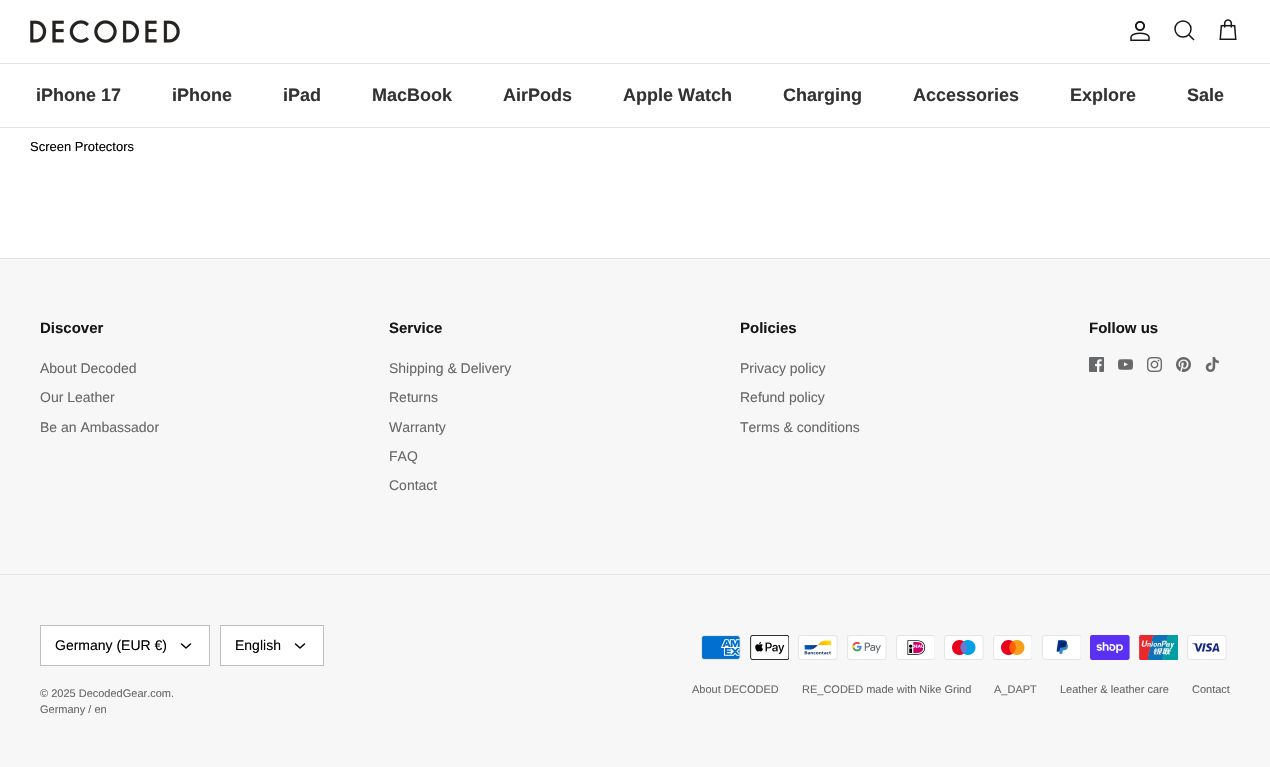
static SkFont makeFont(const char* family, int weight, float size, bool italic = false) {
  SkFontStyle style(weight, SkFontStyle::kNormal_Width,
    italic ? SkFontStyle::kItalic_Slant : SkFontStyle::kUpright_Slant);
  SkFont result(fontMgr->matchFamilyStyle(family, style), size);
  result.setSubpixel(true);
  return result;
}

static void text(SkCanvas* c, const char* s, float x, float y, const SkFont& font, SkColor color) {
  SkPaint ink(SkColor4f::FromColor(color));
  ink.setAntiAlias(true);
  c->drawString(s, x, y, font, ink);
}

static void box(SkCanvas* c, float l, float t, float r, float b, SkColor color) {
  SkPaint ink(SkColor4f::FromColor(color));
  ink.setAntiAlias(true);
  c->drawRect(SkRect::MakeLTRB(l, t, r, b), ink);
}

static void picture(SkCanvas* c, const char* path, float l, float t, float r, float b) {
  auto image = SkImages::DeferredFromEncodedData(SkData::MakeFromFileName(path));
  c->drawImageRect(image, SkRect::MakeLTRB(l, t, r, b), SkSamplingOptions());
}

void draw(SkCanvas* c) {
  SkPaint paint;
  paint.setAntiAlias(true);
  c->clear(0xffffffff);
  box(c, 0, 63, 1270, 64, 0xffe2e2e2);
  picture(c, "img_01.png", 30, 20, 180, 43);
  picture(c, "img_02.png", 1130, 21, 1150, 41);
  paint.setStyle(SkPaint::kStroke_Style);
  paint.setStrokeWidth(1.5f);
  paint.setColor(0xff171717);
  c->drawCircle(1183, 29, 8, paint);
  paint.setStrokeCap(SkPaint::kSquare_Cap);
  c->drawPath(SkPathBuilder().moveTo(1189, 35).lineTo(1193.5f, 39.5f).detach(), paint);
  picture(c, "img_03.png", 1219, 19, 1237, 40);
  box(c, 0, 127, 1270, 128, 0xffe2e2e2);
  SkFont face1 = makeFont("Liberation Sans", 700, 18);
  text(c, "iPhone 17", 36, 101, face1, 0xff333333);
  text(c, "iPhone", 172, 101, face1, 0xff333333);
  text(c, "iPad", 283, 101, face1, 0xff333333);
  text(c, "MacBook", 372, 101, face1, 0xff333333);
  text(c, "AirPods", 503, 101, face1, 0xff333333);
  text(c, "Apple Watch", 623, 101, face1, 0xff333333);
  text(c, "Charging", 783, 101, face1, 0xff333333);
  text(c, "Accessories", 913, 101, face1, 0xff333333);
  text(c, "Explore", 1070, 101, face1, 0xff333333);
  text(c, "Sale", 1187, 101, face1, 0xff333333);
  SkFont face2 = makeFont("Liberation Sans", 400, 13);
  text(c, "Screen Protectors", 30, 151, face2, 0xff000000);
  box(c, 0, 259, 1270, 767, 0xfff7f7f7);
  box(c, 0, 258, 1270, 259, 0xffe4e4e4);
  SkFont face3 = makeFont("Liberation Sans", 700, 15);
  text(c, "Discover", 40, 333, face3, 0xff171717);
  SkFont face4 = makeFont("Liberation Sans", 400, 14);
  text(c, "About Decoded", 40, 373, face4, 0xff676869);
  text(c, "Our Leather", 40, 402, face4, 0xff676869);
  text(c, "Be an Ambassador", 40, 432, face4, 0xff676869);
  text(c, "Service", 389, 333, face3, 0xff171717);
  text(c, "Shipping & Delivery", 389, 373, face4, 0xff676869);
  text(c, "Returns", 389, 402, face4, 0xff676869);
  text(c, "Warranty", 389, 432, face4, 0xff676869);
  text(c, "FAQ", 389, 461, face4, 0xff676869);
  text(c, "Contact", 389, 490, face4, 0xff676869);
  text(c, "Policies", 740, 333, face3, 0xff171717);
  text(c, "Privacy policy", 740, 373, face4, 0xff676869);
  text(c, "Refund policy", 740, 402, face4, 0xff676869);
  text(c, "Terms & conditions", 740, 432, face4, 0xff676869);
  text(c, "Follow us", 1089, 333, face3, 0xff171717);
  picture(c, "img_04.png", 1089, 357, 1104, 372);
  picture(c, "img_05.png", 1118, 359, 1133, 370);
  picture(c, "img_06.png", 1147, 357, 1162, 372);
  picture(c, "img_07.png", 1176, 357, 1191, 372);
  picture(c, "img_08.png", 1205, 357, 1219, 372);
  box(c, 0, 574, 1270, 575, 0xffe4e4e4);
  paint.setStyle(SkPaint::kFill_Style);
  paint.setColor(0xffffffff);
  c->drawRect(SkRect::MakeLTRB(40.5f, 625.5f, 209.5f, 665.5f), paint);
  paint.setStyle(SkPaint::kStroke_Style);
  paint.setStrokeWidth(1);
  paint.setStrokeCap(SkPaint::kButt_Cap);
  paint.setColor(0xffbfbfbf);
  c->drawRect(SkRect::MakeLTRB(40.5f, 625.5f, 209.5f, 665.5f), paint);
  text(c, "Germany (EUR €)", 55, 650, face4, 0xff000000);
  paint.setStrokeWidth(1.5f);
  paint.setStrokeCap(SkPaint::kRound_Cap);
  paint.setStrokeJoin(SkPaint::kRound_Join);
  paint.setColor(0xff000000);
  c->drawPath(SkPathBuilder().moveTo(181.5f, 644).lineTo(186, 648).lineTo(190.5f, 644).detach(), paint);
  paint.setStyle(SkPaint::kFill_Style);
  paint.setColor(0xffffffff);
  c->drawRect(SkRect::MakeLTRB(220.5f, 625.5f, 323.5f, 665.5f), paint);
  paint.setStyle(SkPaint::kStroke_Style);
  paint.setStrokeWidth(1);
  paint.setStrokeCap(SkPaint::kButt_Cap);
  paint.setStrokeJoin(SkPaint::kMiter_Join);
  paint.setColor(0xffbfbfbf);
  c->drawRect(SkRect::MakeLTRB(220.5f, 625.5f, 323.5f, 665.5f), paint);
  text(c, "English", 235, 650, face4, 0xff000000);
  paint.setStrokeWidth(1.5f);
  paint.setStrokeCap(SkPaint::kRound_Cap);
  paint.setStrokeJoin(SkPaint::kRound_Join);
  paint.setColor(0xff000000);
  c->drawPath(SkPathBuilder().moveTo(295.5f, 644).lineTo(300, 648).lineTo(304.5f, 644).detach(), paint);
  SkFont face5 = makeFont("Liberation Sans", 400, 11);
  text(c, "© 2025 DecodedGear.com.", 40, 697, face5, 0xff676869);
  text(c, "Germany / en", 40, 713, face5, 0xff676869);
  picture(c, "img_09.png", 701, 635, 741, 660);
  picture(c, "img_10.png", 750, 635, 789, 660);
  picture(c, "img_11.png", 798, 635, 838, 660);
  picture(c, "img_12.png", 847, 635, 887, 660);
  picture(c, "img_13.png", 896, 635, 935, 660);
  picture(c, "img_14.png", 944, 635, 984, 660);
  picture(c, "img_15.png", 993, 635, 1032, 660);
  picture(c, "img_16.png", 1042, 635, 1081, 660);
  picture(c, "img_17.png", 1090, 635, 1130, 660);
  picture(c, "img_18.png", 1139, 635, 1178, 660);
  picture(c, "img_19.png", 1187, 635, 1227, 660);
  text(c, "About DECODED", 692, 693, face5, 0xff676869);
  text(c, "RE_CODED made with Nike Grind", 802, 693, face5, 0xff676869);
  text(c, "A_DAPT", 994, 693, face5, 0xff676869);
  text(c, "Leather & leather care", 1060, 693, face5, 0xff676869);
  text(c, "Contact", 1192, 693, face5, 0xff676869);
}
